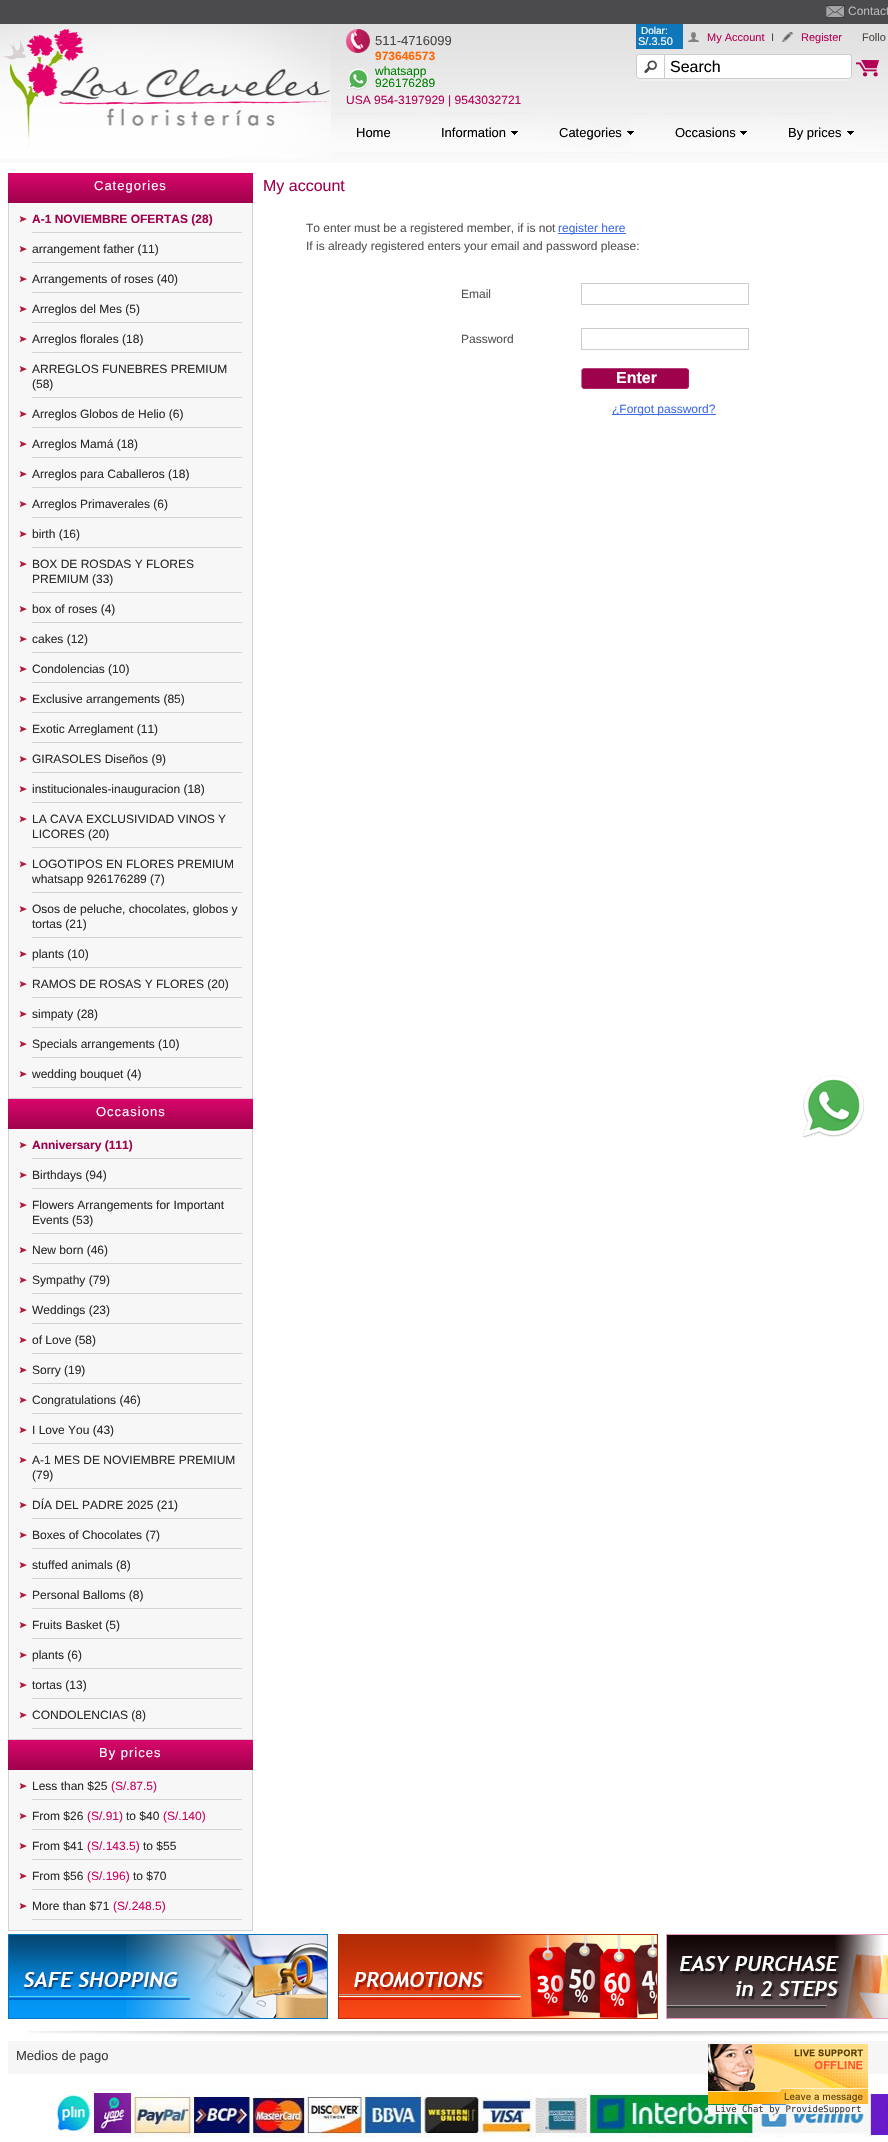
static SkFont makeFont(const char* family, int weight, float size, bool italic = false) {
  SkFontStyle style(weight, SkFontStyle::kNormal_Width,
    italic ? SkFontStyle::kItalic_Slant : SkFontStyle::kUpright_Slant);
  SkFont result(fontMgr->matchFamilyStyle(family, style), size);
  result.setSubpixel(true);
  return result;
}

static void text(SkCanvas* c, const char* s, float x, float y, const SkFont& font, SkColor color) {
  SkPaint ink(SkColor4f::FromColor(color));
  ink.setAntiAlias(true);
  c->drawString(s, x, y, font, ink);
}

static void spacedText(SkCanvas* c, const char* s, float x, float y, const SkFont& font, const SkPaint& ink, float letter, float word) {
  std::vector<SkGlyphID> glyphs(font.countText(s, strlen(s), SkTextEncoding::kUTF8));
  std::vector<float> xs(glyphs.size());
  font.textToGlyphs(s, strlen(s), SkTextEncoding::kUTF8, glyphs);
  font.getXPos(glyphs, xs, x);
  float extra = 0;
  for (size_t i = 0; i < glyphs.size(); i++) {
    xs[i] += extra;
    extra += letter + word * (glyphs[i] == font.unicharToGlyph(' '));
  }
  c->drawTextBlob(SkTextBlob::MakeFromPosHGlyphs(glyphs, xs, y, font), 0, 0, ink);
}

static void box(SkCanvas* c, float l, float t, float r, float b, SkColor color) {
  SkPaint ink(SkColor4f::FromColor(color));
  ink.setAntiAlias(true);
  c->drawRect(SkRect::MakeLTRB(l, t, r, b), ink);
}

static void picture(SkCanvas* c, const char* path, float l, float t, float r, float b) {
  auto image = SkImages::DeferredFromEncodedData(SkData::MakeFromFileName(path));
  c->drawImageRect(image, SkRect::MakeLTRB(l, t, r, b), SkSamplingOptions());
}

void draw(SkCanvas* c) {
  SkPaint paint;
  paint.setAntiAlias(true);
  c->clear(0xffffffff);
  picture(c, "img_01.png", 0, 0, 888, 163);
  picture(c, "img_02.png", 0, 24, 331, 159);
  picture(c, "img_03.png", 826, 5, 845, 18);
  SkFont face1 = makeFont("Liberation Sans", 400, 12);
  text(c, "Contact", 848, 15, face1, 0xffb7b7b8);
  picture(c, "img_04.png", 346, 29, 370, 53);
  SkFont face2 = makeFont("Liberation Sans", 400, 13);
  text(c, "511-4716099", 375, 45, face2, 0xff4b4643);
  SkFont face3 = makeFont("Liberation Sans", 700, 12);
  text(c, "973646573", 375, 60, face3, 0xffff6600);
  picture(c, "img_05.png", 347, 68, 369, 90);
  text(c, "whatsapp", 375, 75, face1, 0xff008000);
  text(c, "926176289", 375, 87, face1, 0xff008000);
  text(c, "USA 954-3197929 | 9543032721", 346, 104, face1, 0xffb60257);
  box(c, 636, 24, 683, 49, 0xff0f77b9);
  SkFont face4 = makeFont("Liberation Sans", 400, 10);
  text(c, "Dolar:", 641, 34, face4, 0xffffffff);
  SkFont face5 = makeFont("Liberation Sans", 400, 11);
  text(c, "S/.3.50", 638, 45, face5, 0xffffffff);
  picture(c, "img_06.png", 688, 32, 699, 42);
  text(c, "My Account", 707, 41, face5, 0xffb60257);
  text(c, "I", 771, 41, face5, 0xff4b4643);
  picture(c, "img_07.png", 782, 32, 793, 42);
  text(c, "Register", 801, 41, face5, 0xffb60257);
  text(c, "Follo", 862, 41, face5, 0xff4b4643);
  paint.setColor(0xfff0f0f0);
  c->drawPath(SkPathBuilder().moveTo(636, 76).lineTo(636, 78).cubicTo(636, 80, 637, 81, 639, 81).lineTo(849, 81).cubicTo(851, 81, 852, 80, 852, 78).lineTo(852, 76).cubicTo(852, 78, 851, 79, 849, 79).lineTo(639, 79).cubicTo(637, 79, 636, 78, 636, 76).close().detach(), paint);
  paint.setColor(0xffffffff);
  c->drawRoundRect(SkRect::MakeLTRB(636.5f, 54.5f, 851.5f, 78.5f), 2.5f, 2.5f, paint);
  paint.setStyle(SkPaint::kStroke_Style);
  paint.setStrokeWidth(1);
  paint.setColor(0xffcccccc);
  c->drawRoundRect(SkRect::MakeLTRB(636.5f, 54.5f, 851.5f, 78.5f), 2.5f, 2.5f, paint);
  picture(c, "img_08.png", 644, 60, 657, 73);
  box(c, 664, 54, 665, 78, 0xffcccccc);
  SkFont face6 = makeFont("Liberation Sans", 400, 16);
  text(c, "Search", 670, 72, face6, 0xff000000);
  picture(c, "img_09.png", 856, 60, 880, 77);
  box(c, 8, 2041, 888, 2074, 0xfff6f6f6);
  picture(c, "img_21.png", 51, 2089, 888, 2137);
  picture(c, "img_10.png", 708, 2044, 868, 2104);
  box(c, 708, 2105, 868, 2114, 0xfff5f5f5);
  SkFont face7 = makeFont("DejaVu Sans Mono", 400, 9);
  text(c, "Live Chat by ProvideSupport", 715, 2112, face7, 0xff3f3f3f);
  picture(c, "img_11.png", 331, 113, 888, 153);
  box(c, 331, 113, 416, 114, 0xffececec);
  text(c, "Home", 356, 137, face2, 0xff000000);
  box(c, 435, 113, 532, 114, 0xffececec);
  text(c, "Information", 441, 137, face2, 0xff000000);
  picture(c, "img_12.png", 511, 131, 518, 135);
  box(c, 631, 113, 650, 114, 0xffececec);
  text(c, "Categories", 559, 137, face2, 0xff000000);
  picture(c, "img_13.png", 627, 131, 634, 135);
  box(c, 664, 113, 763, 114, 0xffececec);
  text(c, "Occasions", 675, 137, face2, 0xff000000);
  picture(c, "img_14.png", 740, 131, 747, 135);
  box(c, 770, 113, 832, 114, 0xffececec);
  text(c, "By prices", 788, 137, face2, 0xff000000);
  picture(c, "img_12.png", 847, 131, 854, 135);
  paint.setStyle(SkPaint::kFill_Style);
  {
    const SkColor colors[] = {0xffd9066a, 0xff9f024c};
    const float stops[] = {0, 1};
    const SkPoint ends[] = {{131, 173}, {131, 203}};
    paint.setShader(SkGradientShader::MakeLinear(ends, colors, stops, 2, SkTileMode::kClamp));
    paint.setAlpha(255);
  }
  c->drawRect(SkRect::MakeLTRB(8, 173, 253, 203), paint);
  paint.setShader(nullptr);
  paint.setColor(0xffffffff);
  spacedText(c, "Categories", 94, 190, face2, paint, 1, 0);
  box(c, 9, 203, 252, 1098, 0xfff7f7f7);
  box(c, 252, 203, 253, 1099, 0xffd3d3d3);
  box(c, 8, 1098, 253, 1099, 0xffd3d3d3);
  box(c, 8, 203, 9, 1099, 0xffd3d3d3);
  picture(c, "img_15.png", 19, 216, 27, 223);
  box(c, 32, 232, 242, 233, 0xffd3d3d3);
  text(c, "A-1 NOVIEMBRE OFERTAS (28)", 32, 223, face3, 0xff9f024c);
  picture(c, "img_15.png", 19, 246, 27, 253);
  box(c, 32, 262, 242, 263, 0xffd3d3d3);
  text(c, "arrangement father (11)", 32, 253, face1, 0xff2c2c2c);
  picture(c, "img_15.png", 19, 276, 27, 283);
  box(c, 32, 292, 242, 293, 0xffd3d3d3);
  text(c, "Arrangements of roses (40)", 32, 283, face1, 0xff2c2c2c);
  picture(c, "img_15.png", 19, 306, 27, 313);
  box(c, 32, 322, 242, 323, 0xffd3d3d3);
  text(c, "Arreglos del Mes (5)", 32, 313, face1, 0xff2c2c2c);
  picture(c, "img_15.png", 19, 336, 27, 343);
  box(c, 32, 352, 242, 353, 0xffd3d3d3);
  text(c, "Arreglos florales (18)", 32, 343, face1, 0xff2c2c2c);
  picture(c, "img_15.png", 19, 366, 27, 373);
  box(c, 32, 397, 242, 398, 0xffd3d3d3);
  text(c, "ARREGLOS FUNEBRES PREMIUM", 32, 373, face1, 0xff2c2c2c);
  text(c, "(58)", 32, 388, face1, 0xff2c2c2c);
  picture(c, "img_15.png", 19, 411, 27, 418);
  box(c, 32, 427, 242, 428, 0xffd3d3d3);
  text(c, "Arreglos Globos de Helio (6)", 32, 418, face1, 0xff2c2c2c);
  picture(c, "img_15.png", 19, 441, 27, 448);
  box(c, 32, 457, 242, 458, 0xffd3d3d3);
  text(c, "Arreglos Mamá (18)", 32, 448, face1, 0xff2c2c2c);
  picture(c, "img_15.png", 19, 471, 27, 478);
  box(c, 32, 487, 242, 488, 0xffd3d3d3);
  text(c, "Arreglos para Caballeros (18)", 32, 478, face1, 0xff2c2c2c);
  picture(c, "img_15.png", 19, 501, 27, 508);
  box(c, 32, 517, 242, 518, 0xffd3d3d3);
  text(c, "Arreglos Primaverales (6)", 32, 508, face1, 0xff2c2c2c);
  picture(c, "img_15.png", 19, 531, 27, 538);
  box(c, 32, 547, 242, 548, 0xffd3d3d3);
  text(c, "birth (16)", 32, 538, face1, 0xff2c2c2c);
  picture(c, "img_15.png", 19, 561, 27, 568);
  box(c, 32, 592, 242, 593, 0xffd3d3d3);
  text(c, "BOX DE ROSDAS Y FLORES", 32, 568, face1, 0xff2c2c2c);
  text(c, "PREMIUM (33)", 32, 583, face1, 0xff2c2c2c);
  picture(c, "img_15.png", 19, 606, 27, 613);
  box(c, 32, 622, 242, 623, 0xffd3d3d3);
  text(c, "box of roses (4)", 32, 613, face1, 0xff2c2c2c);
  picture(c, "img_15.png", 19, 636, 27, 643);
  box(c, 32, 652, 242, 653, 0xffd3d3d3);
  text(c, "cakes (12)", 32, 643, face1, 0xff2c2c2c);
  picture(c, "img_15.png", 19, 666, 27, 673);
  box(c, 32, 682, 242, 683, 0xffd3d3d3);
  text(c, "Condolencias (10)", 32, 673, face1, 0xff2c2c2c);
  picture(c, "img_15.png", 19, 696, 27, 703);
  box(c, 32, 712, 242, 713, 0xffd3d3d3);
  text(c, "Exclusive arrangements (85)", 32, 703, face1, 0xff2c2c2c);
  picture(c, "img_15.png", 19, 726, 27, 733);
  box(c, 32, 742, 242, 743, 0xffd3d3d3);
  text(c, "Exotic Arreglament (11)", 32, 733, face1, 0xff2c2c2c);
  picture(c, "img_15.png", 19, 756, 27, 763);
  box(c, 32, 772, 242, 773, 0xffd3d3d3);
  text(c, "GIRASOLES Diseños (9)", 32, 763, face1, 0xff2c2c2c);
  picture(c, "img_15.png", 19, 786, 27, 793);
  box(c, 32, 802, 242, 803, 0xffd3d3d3);
  text(c, "institucionales-inauguracion (18)", 32, 793, face1, 0xff2c2c2c);
  picture(c, "img_15.png", 19, 816, 27, 823);
  box(c, 32, 847, 242, 848, 0xffd3d3d3);
  text(c, "LA CAVA EXCLUSIVIDAD VINOS Y", 32, 823, face1, 0xff2c2c2c);
  text(c, "LICORES (20)", 32, 838, face1, 0xff2c2c2c);
  picture(c, "img_15.png", 19, 861, 27, 868);
  box(c, 32, 892, 242, 893, 0xffd3d3d3);
  text(c, "LOGOTIPOS EN FLORES PREMIUM", 32, 868, face1, 0xff2c2c2c);
  text(c, "whatsapp 926176289 (7)", 32, 883, face1, 0xff2c2c2c);
  picture(c, "img_15.png", 19, 906, 27, 913);
  box(c, 32, 937, 242, 938, 0xffd3d3d3);
  text(c, "Osos de peluche, chocolates, globos y", 32, 913, face1, 0xff2c2c2c);
  text(c, "tortas (21)", 32, 928, face1, 0xff2c2c2c);
  picture(c, "img_15.png", 19, 951, 27, 958);
  box(c, 32, 967, 242, 968, 0xffd3d3d3);
  text(c, "plants (10)", 32, 958, face1, 0xff2c2c2c);
  picture(c, "img_15.png", 19, 981, 27, 988);
  box(c, 32, 997, 242, 998, 0xffd3d3d3);
  text(c, "RAMOS DE ROSAS Y FLORES (20)", 32, 988, face1, 0xff2c2c2c);
  picture(c, "img_15.png", 19, 1011, 27, 1018);
  box(c, 32, 1027, 242, 1028, 0xffd3d3d3);
  text(c, "simpaty (28)", 32, 1018, face1, 0xff2c2c2c);
  picture(c, "img_15.png", 19, 1041, 27, 1048);
  box(c, 32, 1057, 242, 1058, 0xffd3d3d3);
  text(c, "Specials arrangements (10)", 32, 1048, face1, 0xff2c2c2c);
  picture(c, "img_15.png", 19, 1071, 27, 1078);
  box(c, 32, 1087, 242, 1088, 0xffd3d3d3);
  text(c, "wedding bouquet (4)", 32, 1078, face1, 0xff2c2c2c);
  {
    const SkColor colors[] = {0xffd9066a, 0xff9f024c};
    const float stops[] = {0, 1};
    const SkPoint ends[] = {{131, 1099}, {131, 1129}};
    paint.setShader(SkGradientShader::MakeLinear(ends, colors, stops, 2, SkTileMode::kClamp));
    paint.setAlpha(255);
  }
  c->drawRect(SkRect::MakeLTRB(8, 1099, 253, 1129), paint);
  paint.setShader(nullptr);
  paint.setColor(0xffffffff);
  spacedText(c, "Occasions", 96, 1116, face2, paint, 1, 0);
  box(c, 9, 1129, 252, 1739, 0xfff7f7f7);
  box(c, 252, 1129, 253, 1740, 0xffd3d3d3);
  box(c, 8, 1739, 253, 1740, 0xffd3d3d3);
  box(c, 8, 1129, 9, 1740, 0xffd3d3d3);
  picture(c, "img_15.png", 19, 1142, 27, 1149);
  box(c, 32, 1158, 242, 1159, 0xffd3d3d3);
  text(c, "Anniversary (111)", 32, 1149, face3, 0xff9f024c);
  picture(c, "img_15.png", 19, 1172, 27, 1179);
  box(c, 32, 1188, 242, 1189, 0xffd3d3d3);
  text(c, "Birthdays (94)", 32, 1179, face1, 0xff2c2c2c);
  picture(c, "img_15.png", 19, 1202, 27, 1209);
  box(c, 32, 1233, 242, 1234, 0xffd3d3d3);
  text(c, "Flowers Arrangements for Important", 32, 1209, face1, 0xff2c2c2c);
  text(c, "Events (53)", 32, 1224, face1, 0xff2c2c2c);
  picture(c, "img_15.png", 19, 1247, 27, 1254);
  box(c, 32, 1263, 242, 1264, 0xffd3d3d3);
  text(c, "New born (46)", 32, 1254, face1, 0xff2c2c2c);
  picture(c, "img_15.png", 19, 1277, 27, 1284);
  box(c, 32, 1293, 242, 1294, 0xffd3d3d3);
  text(c, "Sympathy (79)", 32, 1284, face1, 0xff2c2c2c);
  picture(c, "img_15.png", 19, 1307, 27, 1314);
  box(c, 32, 1323, 242, 1324, 0xffd3d3d3);
  text(c, "Weddings (23)", 32, 1314, face1, 0xff2c2c2c);
  picture(c, "img_15.png", 19, 1337, 27, 1344);
  box(c, 32, 1353, 242, 1354, 0xffd3d3d3);
  text(c, "of Love (58)", 32, 1344, face1, 0xff2c2c2c);
  picture(c, "img_15.png", 19, 1367, 27, 1374);
  box(c, 32, 1383, 242, 1384, 0xffd3d3d3);
  text(c, "Sorry (19)", 32, 1374, face1, 0xff2c2c2c);
  picture(c, "img_15.png", 19, 1397, 27, 1404);
  box(c, 32, 1413, 242, 1414, 0xffd3d3d3);
  text(c, "Congratulations (46)", 32, 1404, face1, 0xff2c2c2c);
  picture(c, "img_15.png", 19, 1427, 27, 1434);
  box(c, 32, 1443, 242, 1444, 0xffd3d3d3);
  text(c, "I Love You (43)", 32, 1434, face1, 0xff2c2c2c);
  picture(c, "img_15.png", 19, 1457, 27, 1464);
  box(c, 32, 1488, 242, 1489, 0xffd3d3d3);
  text(c, "A-1 MES DE NOVIEMBRE PREMIUM", 32, 1464, face1, 0xff2c2c2c);
  text(c, "(79)", 32, 1479, face1, 0xff2c2c2c);
  picture(c, "img_15.png", 19, 1502, 27, 1509);
  box(c, 32, 1518, 242, 1519, 0xffd3d3d3);
  text(c, "DÍA DEL PADRE 2025 (21)", 32, 1509, face1, 0xff2c2c2c);
  picture(c, "img_15.png", 19, 1532, 27, 1539);
  box(c, 32, 1548, 242, 1549, 0xffd3d3d3);
  text(c, "Boxes of Chocolates (7)", 32, 1539, face1, 0xff2c2c2c);
  picture(c, "img_15.png", 19, 1562, 27, 1569);
  box(c, 32, 1578, 242, 1579, 0xffd3d3d3);
  text(c, "stuffed animals (8)", 32, 1569, face1, 0xff2c2c2c);
  picture(c, "img_15.png", 19, 1592, 27, 1599);
  box(c, 32, 1608, 242, 1609, 0xffd3d3d3);
  text(c, "Personal Balloms (8)", 32, 1599, face1, 0xff2c2c2c);
  picture(c, "img_15.png", 19, 1622, 27, 1629);
  box(c, 32, 1638, 242, 1639, 0xffd3d3d3);
  text(c, "Fruits Basket (5)", 32, 1629, face1, 0xff2c2c2c);
  picture(c, "img_15.png", 19, 1652, 27, 1659);
  box(c, 32, 1668, 242, 1669, 0xffd3d3d3);
  text(c, "plants (6)", 32, 1659, face1, 0xff2c2c2c);
  picture(c, "img_15.png", 19, 1682, 27, 1689);
  box(c, 32, 1698, 242, 1699, 0xffd3d3d3);
  text(c, "tortas (13)", 32, 1689, face1, 0xff2c2c2c);
  picture(c, "img_15.png", 19, 1712, 27, 1719);
  box(c, 32, 1728, 242, 1729, 0xffd3d3d3);
  text(c, "CONDOLENCIAS (8)", 32, 1719, face1, 0xff2c2c2c);
  {
    const SkColor colors[] = {0xffd9066a, 0xff9f024c};
    const float stops[] = {0, 1};
    const SkPoint ends[] = {{131, 1740}, {131, 1770}};
    paint.setShader(SkGradientShader::MakeLinear(ends, colors, stops, 2, SkTileMode::kClamp));
    paint.setAlpha(255);
  }
  c->drawRect(SkRect::MakeLTRB(8, 1740, 253, 1770), paint);
  paint.setShader(nullptr);
  paint.setColor(0xffffffff);
  spacedText(c, "By prices", 99, 1757, face2, paint, 1, 0);
  box(c, 9, 1770, 252, 1930, 0xfff7f7f7);
  box(c, 252, 1770, 253, 1931, 0xffd3d3d3);
  box(c, 8, 1930, 253, 1931, 0xffd3d3d3);
  box(c, 8, 1770, 9, 1931, 0xffd3d3d3);
  picture(c, "img_15.png", 19, 1783, 27, 1790);
  box(c, 32, 1799, 242, 1800, 0xffd3d3d3);
  text(c, "Less than $25", 32, 1790, face1, 0xff2c2c2c);
  text(c, "(S/.87.5)", 111, 1790, face1, 0xffcc0563);
  picture(c, "img_15.png", 19, 1813, 27, 1820);
  box(c, 32, 1829, 242, 1830, 0xffd3d3d3);
  text(c, "From $26", 32, 1820, face1, 0xff2c2c2c);
  text(c, "(S/.91)", 87, 1820, face1, 0xffcc0563);
  text(c, "to $40", 126, 1820, face1, 0xff2c2c2c);
  text(c, "(S/.140)", 163, 1820, face1, 0xffcc0563);
  picture(c, "img_15.png", 19, 1843, 27, 1850);
  box(c, 32, 1859, 242, 1860, 0xffd3d3d3);
  text(c, "From $41", 32, 1850, face1, 0xff2c2c2c);
  text(c, "(S/.143.5)", 87, 1850, face1, 0xffcc0563);
  text(c, "to $55", 143, 1850, face1, 0xff2c2c2c);
  picture(c, "img_15.png", 19, 1873, 27, 1880);
  box(c, 32, 1889, 242, 1890, 0xffd3d3d3);
  text(c, "From $56", 32, 1880, face1, 0xff2c2c2c);
  text(c, "(S/.196)", 87, 1880, face1, 0xffcc0563);
  text(c, "to $70", 133, 1880, face1, 0xff2c2c2c);
  picture(c, "img_15.png", 19, 1903, 27, 1910);
  box(c, 32, 1919, 242, 1920, 0xffd3d3d3);
  text(c, "More than $71", 32, 1910, face1, 0xff2c2c2c);
  text(c, "(S/.248.5)", 113, 1910, face1, 0xffcc0563);
  text(c, "My account", 263, 191, face6, 0xff9f024c);
  text(c, "To enter must be a registered member, if is not", 306, 232, face1, 0xff555555);
  box(c, 558, 233, 626, 234, 0xff416ce6);
  text(c, "register here", 558, 232, face1, 0xff416ce6);
  text(c, "If is already registered enters your email and password please:", 306, 250, face1, 0xff555555);
  text(c, "Email", 461, 298, face1, 0xff555555);
  paint.setStyle(SkPaint::kStroke_Style);
  paint.setColor(0xffcccccc);
  c->drawRect(SkRect::MakeLTRB(581.5f, 283.5f, 748.5f, 304.5f), paint);
  text(c, "Password", 461, 343, face1, 0xff555555);
  c->drawRect(SkRect::MakeLTRB(581.5f, 328.5f, 748.5f, 349.5f), paint);
  picture(c, "img_16.png", 581, 368, 689, 389);
  SkFont face8 = makeFont("Liberation Sans", 700, 16);
  text(c, "Enter", 616, 383, face8, 0xffffffff);
  box(c, 612, 414, 716, 415, 0xff416ce6);
  text(c, "¿Forgot password?", 612, 413, face1, 0xff416ce6);
  picture(c, "img_17.png", 8, 1934, 328, 2019);
  picture(c, "img_18.png", 338, 1934, 658, 2019);
  picture(c, "img_19.png", 666, 1934, 888, 2019);
  picture(c, "img_20.png", 27, 2031, 888, 2037);
  text(c, "Medios de pago", 16, 2060, face2, 0xff3f3f3f);
  picture(c, "img_22.png", 802, 1075, 864, 1138);
}
